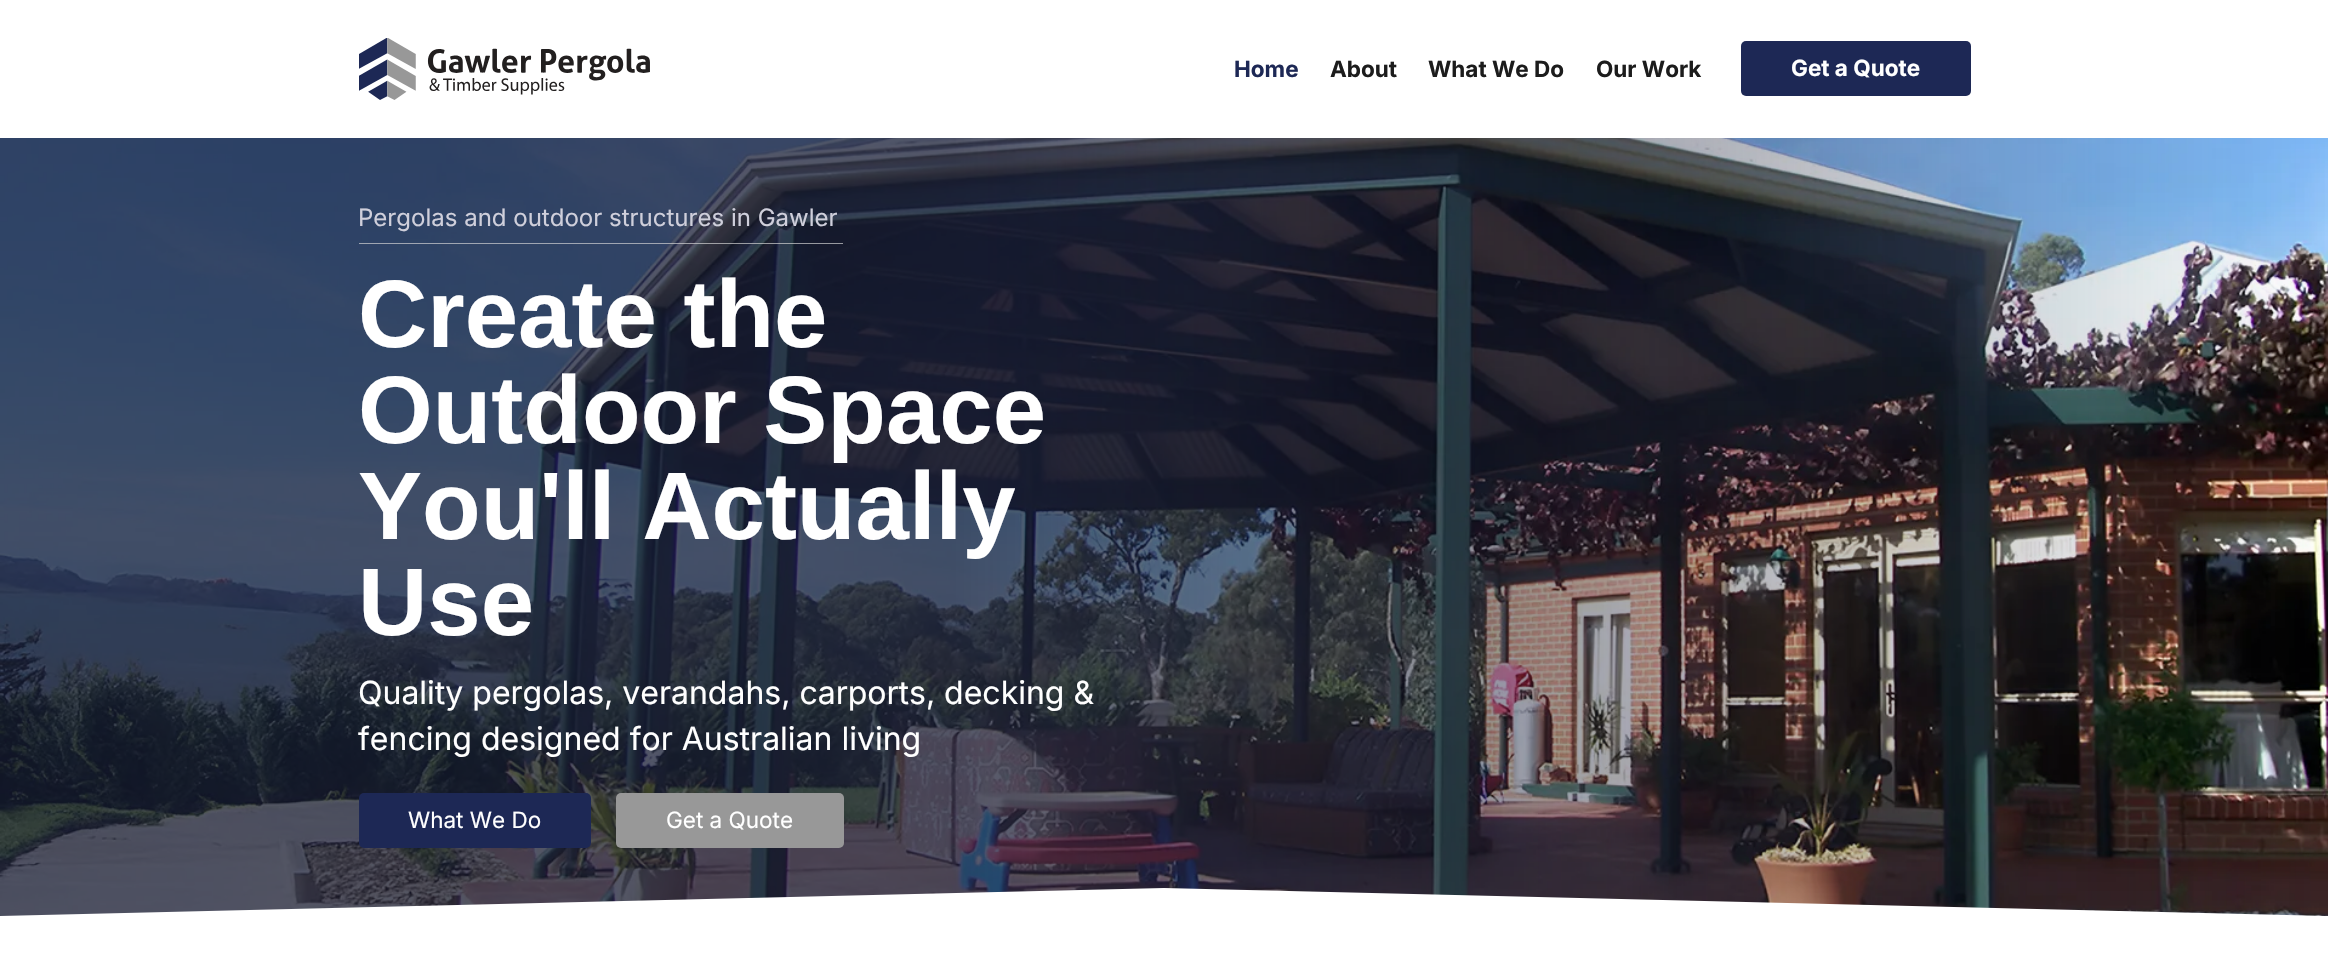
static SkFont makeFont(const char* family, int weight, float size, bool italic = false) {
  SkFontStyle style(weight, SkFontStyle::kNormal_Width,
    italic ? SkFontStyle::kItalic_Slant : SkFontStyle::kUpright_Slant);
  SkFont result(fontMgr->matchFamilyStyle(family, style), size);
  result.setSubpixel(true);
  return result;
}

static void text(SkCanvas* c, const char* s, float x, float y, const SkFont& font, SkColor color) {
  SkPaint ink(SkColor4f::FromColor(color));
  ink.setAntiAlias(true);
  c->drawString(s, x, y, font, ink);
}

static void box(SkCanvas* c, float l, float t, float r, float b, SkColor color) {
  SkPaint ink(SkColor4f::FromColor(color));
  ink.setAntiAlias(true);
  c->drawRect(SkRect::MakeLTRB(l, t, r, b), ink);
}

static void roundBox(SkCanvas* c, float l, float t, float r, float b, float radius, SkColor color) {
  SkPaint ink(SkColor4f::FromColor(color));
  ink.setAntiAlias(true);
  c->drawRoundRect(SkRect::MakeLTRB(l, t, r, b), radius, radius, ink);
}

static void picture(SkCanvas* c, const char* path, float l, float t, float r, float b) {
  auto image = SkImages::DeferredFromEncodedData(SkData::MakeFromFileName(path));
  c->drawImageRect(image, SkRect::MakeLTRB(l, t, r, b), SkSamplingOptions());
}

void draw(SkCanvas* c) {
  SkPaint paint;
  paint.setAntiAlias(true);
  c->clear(0xffffffff);
  picture(c, "img_01.png", 359, 38, 650, 100);
  SkFont face1 = makeFont("Inter", 700, 22.5f);
  text(c, "Home", 1234, 77, face1, 0xff1d2855);
  text(c, "About", 1330, 77, face1, 0xff1c1c1c);
  text(c, "What We Do", 1428, 77, face1, 0xff1c1c1c);
  text(c, "Our Work", 1596, 77, face1, 0xff1c1c1c);
  roundBox(c, 1741, 41, 1971, 96, 5, 0xff1d2855);
  text(c, "Get a Quote", 1791, 76, face1, 0xffffffff);
  picture(c, "img_02.png", 0, 138, 2328, 916);
  SkFont face2 = makeFont("Inter", 400, 24);
  text(c, "Pergolas and outdoor structures in Gawler", 358, 226, face2, 0xffcfcfdb);
  box(c, 359, 243, 843, 244, 0xabd6d6d6);
  SkFont face3 = makeFont("Liberation Sans", 700, 96);
  text(c, "Create the", 358, 347, face3, 0xffffffff);
  text(c, "Outdoor Space", 358, 443, face3, 0xffffffff);
  text(c, "You'll Actually", 358, 539, face3, 0xffffffff);
  text(c, "Use", 358, 635, face3, 0xffffffff);
  SkFont face4 = makeFont("Inter", 400, 32);
  text(c, "Quality pergolas, verandahs, carports, decking &", 358, 704, face4, 0xffffffff);
  text(c, "fencing designed for Australian living", 358, 750, face4, 0xffffffff);
  roundBox(c, 359, 793, 591, 848, 5, 0xff1d2855);
  SkFont face5 = makeFont("Inter", 400, 22.5f);
  text(c, "What We Do", 408, 828, face5, 0xffffffff);
  roundBox(c, 616, 793, 844, 848, 5, 0xff989898);
  text(c, "Get a Quote", 666, 828, face5, 0xffffffff);
  paint.setColor(0xffffffff);
  c->drawPath(SkPathBuilder().moveTo(1164, 888).lineTo(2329, 916).lineTo(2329, 918).lineTo(-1, 918).lineTo(-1, 916).close().detach(), paint);
}
